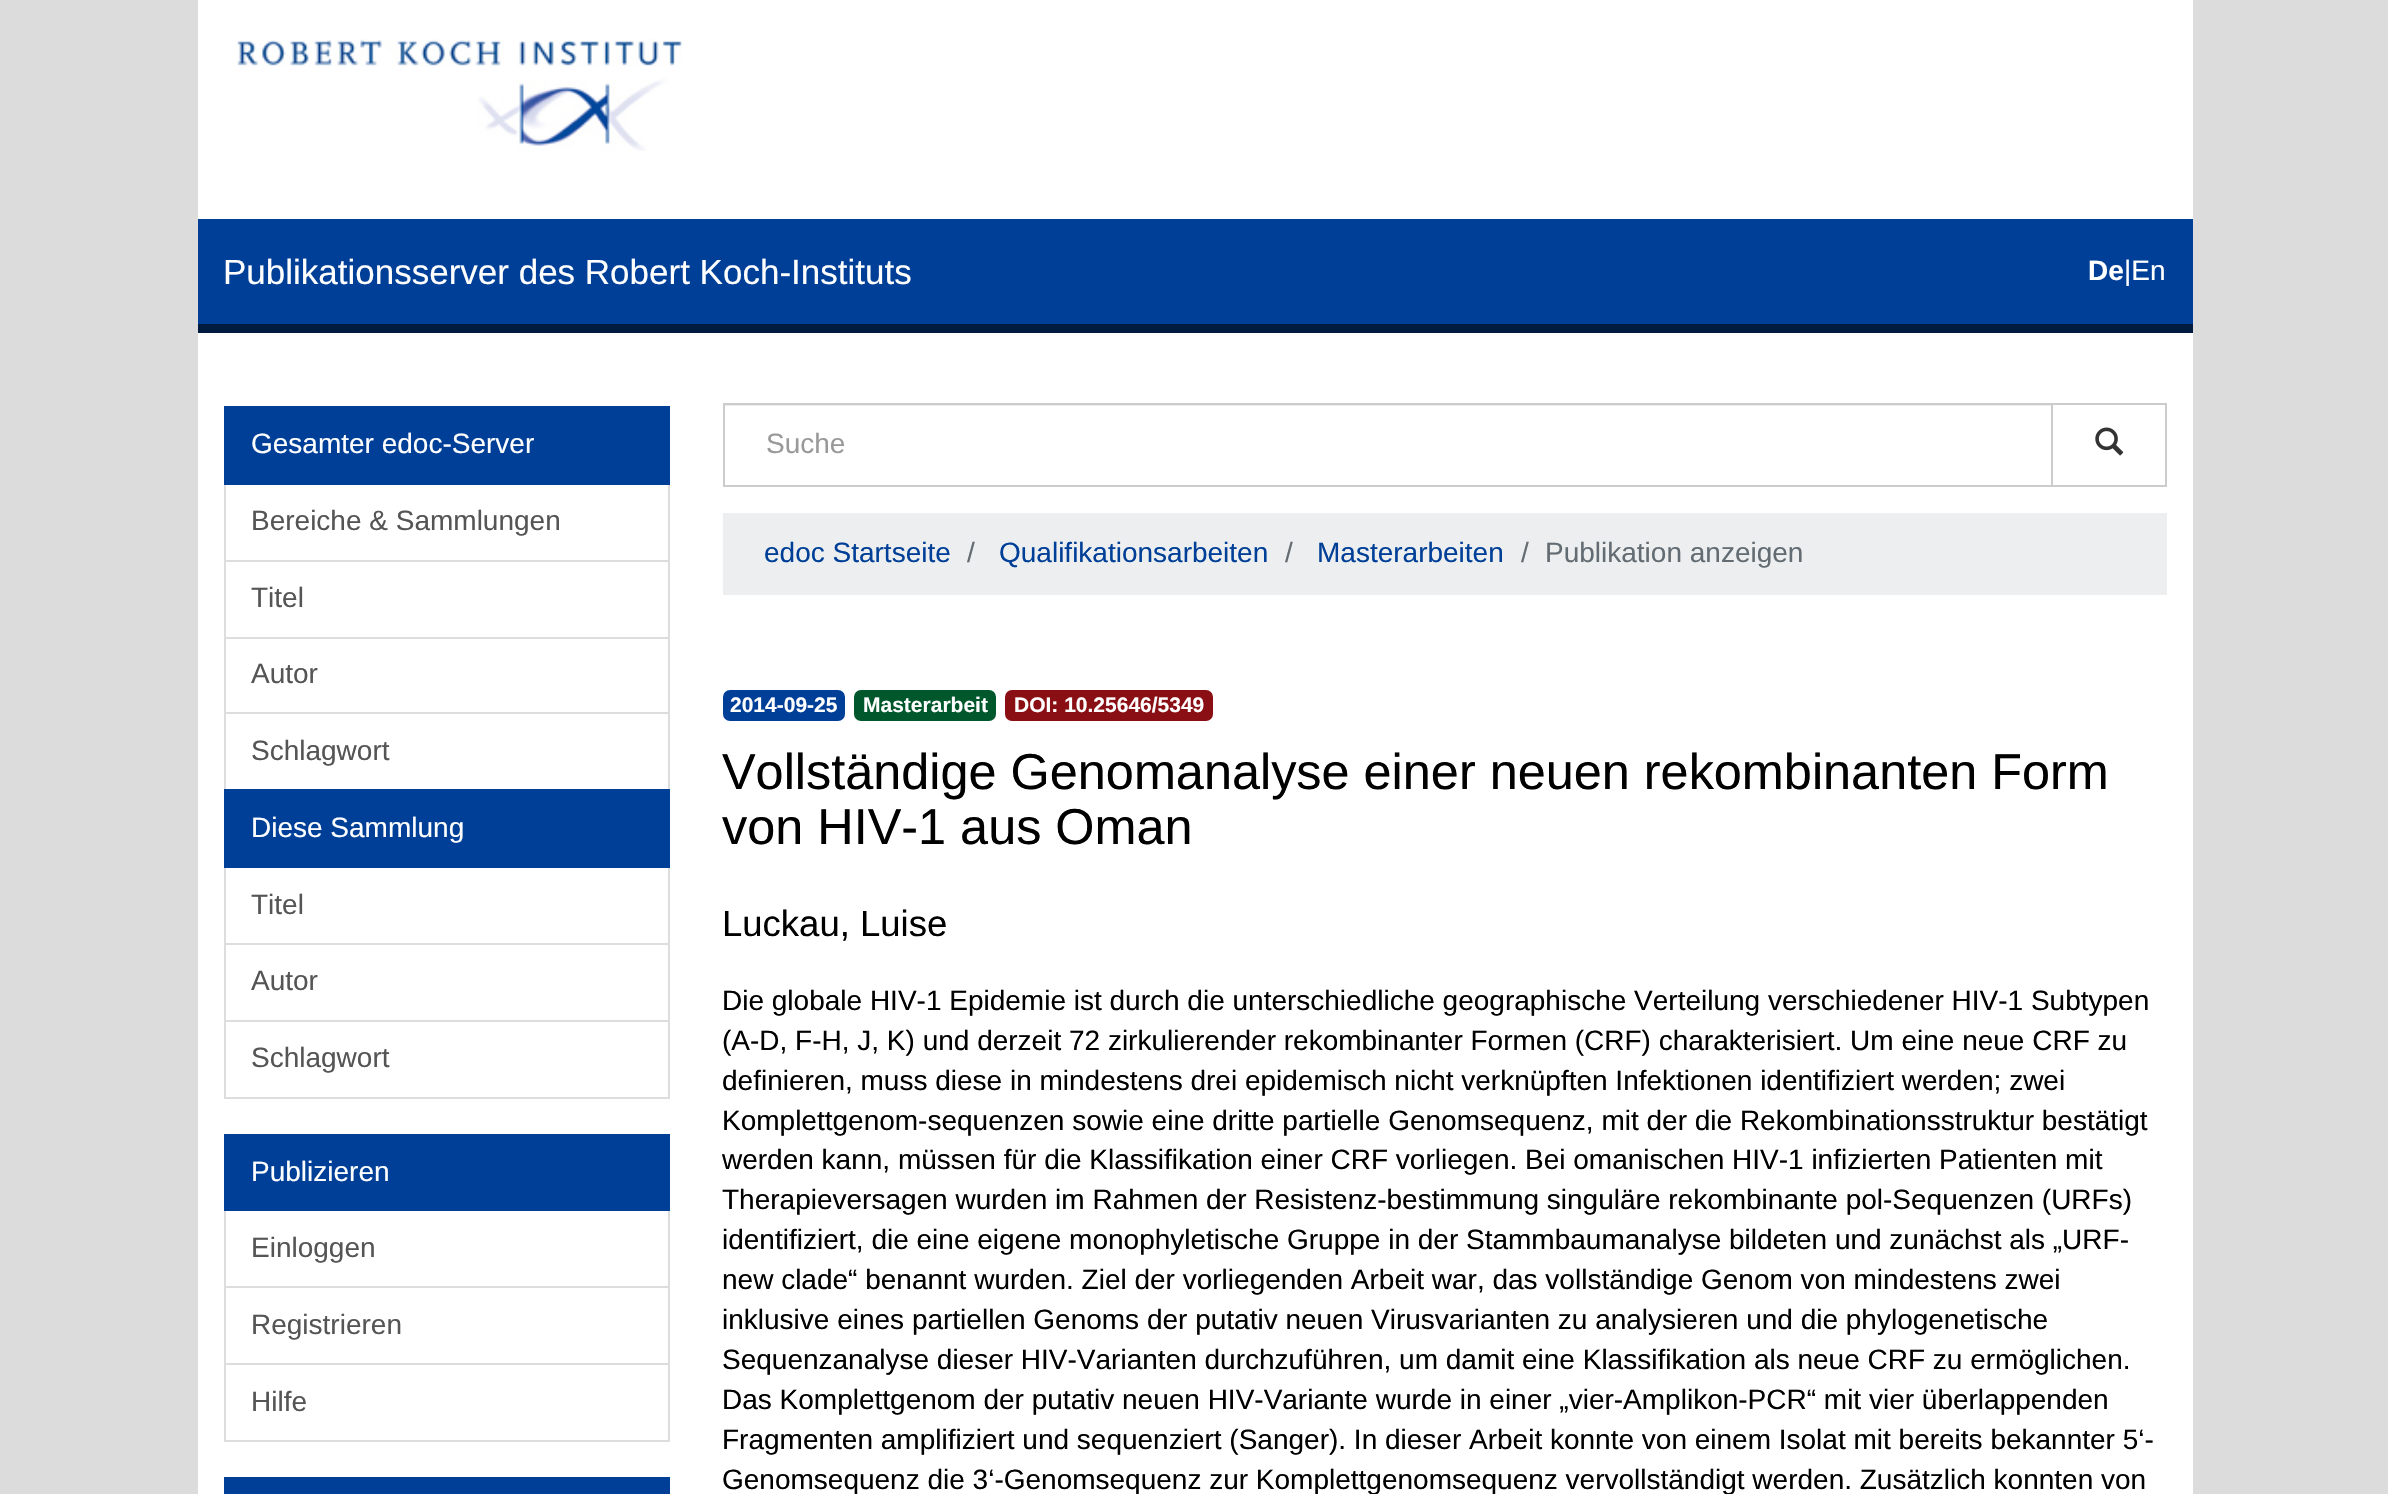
static SkFont makeFont(const char* family, int weight, float size, bool italic = false) {
  SkFontStyle style(weight, SkFontStyle::kNormal_Width,
    italic ? SkFontStyle::kItalic_Slant : SkFontStyle::kUpright_Slant);
  SkFont result(fontMgr->matchFamilyStyle(family, style), size);
  result.setSubpixel(true);
  return result;
}

static void text(SkCanvas* c, const char* s, float x, float y, const SkFont& font, SkColor color) {
  SkPaint ink(SkColor4f::FromColor(color));
  ink.setAntiAlias(true);
  c->drawString(s, x, y, font, ink);
}

static void box(SkCanvas* c, float l, float t, float r, float b, SkColor color) {
  SkPaint ink(SkColor4f::FromColor(color));
  ink.setAntiAlias(true);
  c->drawRect(SkRect::MakeLTRB(l, t, r, b), ink);
}

static void roundBox(SkCanvas* c, float l, float t, float r, float b, float radius, SkColor color) {
  SkPaint ink(SkColor4f::FromColor(color));
  ink.setAntiAlias(true);
  c->drawRoundRect(SkRect::MakeLTRB(l, t, r, b), radius, radius, ink);
}

static void picture(SkCanvas* c, const char* path, float l, float t, float r, float b) {
  auto image = SkImages::DeferredFromEncodedData(SkData::MakeFromFileName(path));
  c->drawImageRect(image, SkRect::MakeLTRB(l, t, r, b), SkSamplingOptions());
}

void draw(SkCanvas* c) {
  SkPaint paint;
  paint.setAntiAlias(true);
  c->clear(0xffdcdcdc);
  box(c, 198, 0, 2193, 1494, 0xffffffff);
  picture(c, "img_01.png", 237, 39, 682, 151);
  box(c, 198, 219, 2193, 324, 0xff003f97);
  box(c, 198, 324, 2193, 333, 0xff011b40);
  SkFont face1 = makeFont("Liberation Sans", 400, 35);
  text(c, "Publikationsserver des Robert Koch-Instituts", 223, 284, face1, 0xffffffff);
  SkFont face2 = makeFont("Liberation Sans", 700, 28);
  text(c, "De", 2088, 280, face2, 0xffffffff);
  SkFont face3 = makeFont("Liberation Sans", 400, 28);
  text(c, "|En", 2124, 280, face3, 0xffffffff);
  paint.setStyle(SkPaint::kStroke_Style);
  paint.setStrokeWidth(2);
  paint.setColor(0xffdddddd);
  c->drawRect(SkRect::MakeLTRB(225, 484, 669, 561), paint);
  box(c, 224, 406, 670, 485, 0xff003f97);
  text(c, "Gesamter edoc-Server", 251, 453, face3, 0xffffffff);
  text(c, "Bereiche & Sammlungen", 251, 530, face3, 0xff555555);
  c->drawRect(SkRect::MakeLTRB(225, 561, 669, 638), paint);
  text(c, "Titel", 251, 607, face3, 0xff555555);
  c->drawRect(SkRect::MakeLTRB(225, 638, 669, 713), paint);
  text(c, "Autor", 251, 683, face3, 0xff555555);
  c->drawRect(SkRect::MakeLTRB(225, 713, 669, 790), paint);
  text(c, "Schlagwort", 251, 760, face3, 0xff555555);
  c->drawRect(SkRect::MakeLTRB(225, 867, 669, 944), paint);
  box(c, 224, 789, 670, 868, 0xff003f97);
  text(c, "Diese Sammlung", 251, 837, face3, 0xffffffff);
  text(c, "Titel", 251, 914, face3, 0xff555555);
  c->drawRect(SkRect::MakeLTRB(225, 944, 669, 1021), paint);
  text(c, "Autor", 251, 990, face3, 0xff555555);
  c->drawRect(SkRect::MakeLTRB(225, 1021, 669, 1098), paint);
  text(c, "Schlagwort", 251, 1067, face3, 0xff555555);
  c->drawRect(SkRect::MakeLTRB(225, 1210, 669, 1287), paint);
  box(c, 224, 1134, 670, 1211, 0xff003f97);
  text(c, "Publizieren", 251, 1181, face3, 0xffffffff);
  text(c, "Einloggen", 251, 1257, face3, 0xff555555);
  c->drawRect(SkRect::MakeLTRB(225, 1287, 669, 1364), paint);
  text(c, "Registrieren", 251, 1334, face3, 0xff555555);
  c->drawRect(SkRect::MakeLTRB(225, 1364, 669, 1441), paint);
  text(c, "Hilfe", 251, 1411, face3, 0xff555555);
  box(c, 224, 1477, 670, 1494, 0xff003f97);
  box(c, 725, 405, 2051, 406, 0xffececec);
  paint.setColor(0xffcccccc);
  c->drawRect(SkRect::MakeLTRB(2052, 404, 2166, 486), paint);
  c->drawRect(SkRect::MakeLTRB(724, 404, 2052, 486), paint);
  text(c, "Suche", 766, 453, face3, 0xff999999);
  picture(c, "img_02.png", 2095, 427, 2124, 456);
  box(c, 723, 513, 2167, 595, 0xffeceeef);
  text(c, "edoc Startseite", 764, 562, face3, 0xff003f97);
  text(c, "/", 967, 562, face3, 0xff636c72);
  text(c, "Qualifikationsarbeiten", 999, 562, face3, 0xff003f97);
  text(c, "/", 1285, 562, face3, 0xff636c72);
  text(c, "Masterarbeiten", 1317, 562, face3, 0xff003f97);
  text(c, "/", 1521, 562, face3, 0xff636c72);
  text(c, "Publikation anzeigen", 1545, 562, face3, 0xff636c72);
  roundBox(c, 723, 690, 845, 721, 7, 0xff003f97);
  SkFont face4 = makeFont("Liberation Sans", 700, 21);
  text(c, "2014-09-25", 730, 712, face4, 0xffffffff);
  roundBox(c, 854, 690, 996, 721, 7, 0xff00572c);
  text(c, "Masterarbeit", 863, 712, face4, 0xffffffff);
  roundBox(c, 1005, 690, 1213, 721, 7, 0xff8a0f14);
  text(c, "DOI: 10.25646/5349", 1014, 712, face4, 0xffffffff);
  SkFont face5 = makeFont("Liberation Sans", 400, 50.4f);
  text(c, "Vollständige Genomanalyse einer neuen rekombinanten Form", 722, 789, face5, 0xff000000);
  text(c, "von HIV-1 aus Oman", 722, 844, face5, 0xff000000);
  SkFont face6 = makeFont("Liberation Sans", 400, 36.5f);
  text(c, "Luckau, Luise", 722, 936, face6, 0xff000000);
  text(c, "Die globale HIV-1 Epidemie ist durch die unterschiedliche geographische Verteilung verschiedener HIV-1 Subtypen", 722, 1010, face3, 0xff000000);
  text(c, "(A-D, F-H, J, K) und derzeit 72 zirkulierender rekombinanter Formen (CRF) charakterisiert. Um eine neue CRF zu", 722, 1050, face3, 0xff000000);
  text(c, "definieren, muss diese in mindestens drei epidemisch nicht verknüpften Infektionen identifiziert werden; zwei", 722, 1090, face3, 0xff000000);
  text(c, "Komplettgenom-sequenzen sowie eine dritte partielle Genomsequenz, mit der die Rekombinationsstruktur bestätigt", 722, 1130, face3, 0xff000000);
  text(c, "werden kann, müssen für die Klassifikation einer CRF vorliegen. Bei omanischen HIV-1 infizierten Patienten mit", 722, 1169, face3, 0xff000000);
  text(c, "Therapieversagen wurden im Rahmen der Resistenz-bestimmung singuläre rekombinante pol-Sequenzen (URFs)", 722, 1209, face3, 0xff000000);
  text(c, "identifiziert, die eine eigene monophyletische Gruppe in der Stammbaumanalyse bildeten und zunächst als „URF-", 722, 1249, face3, 0xff000000);
  text(c, "new clade“ benannt wurden. Ziel der vorliegenden Arbeit war, das vollständige Genom von mindestens zwei", 722, 1289, face3, 0xff000000);
  text(c, "inklusive eines partiellen Genoms der putativ neuen Virusvarianten zu analysieren und die phylogenetische", 722, 1329, face3, 0xff000000);
  text(c, "Sequenzanalyse dieser HIV-Varianten durchzuführen, um damit eine Klassifikation als neue CRF zu ermöglichen.", 722, 1369, face3, 0xff000000);
  text(c, "Das Komplettgenom der putativ neuen HIV-Variante wurde in einer „vier-Amplikon-PCR“ mit vier überlappenden", 722, 1409, face3, 0xff000000);
  text(c, "Fragmenten amplifiziert und sequenziert (Sanger). In dieser Arbeit konnte von einem Isolat mit bereits bekannter 5‘-", 722, 1449, face3, 0xff000000);
  text(c, "Genomsequenz die 3‘-Genomsequenz zur Komplettgenomsequenz vervollständigt werden. Zusätzlich konnten von", 722, 1489, face3, 0xff000000);
}
